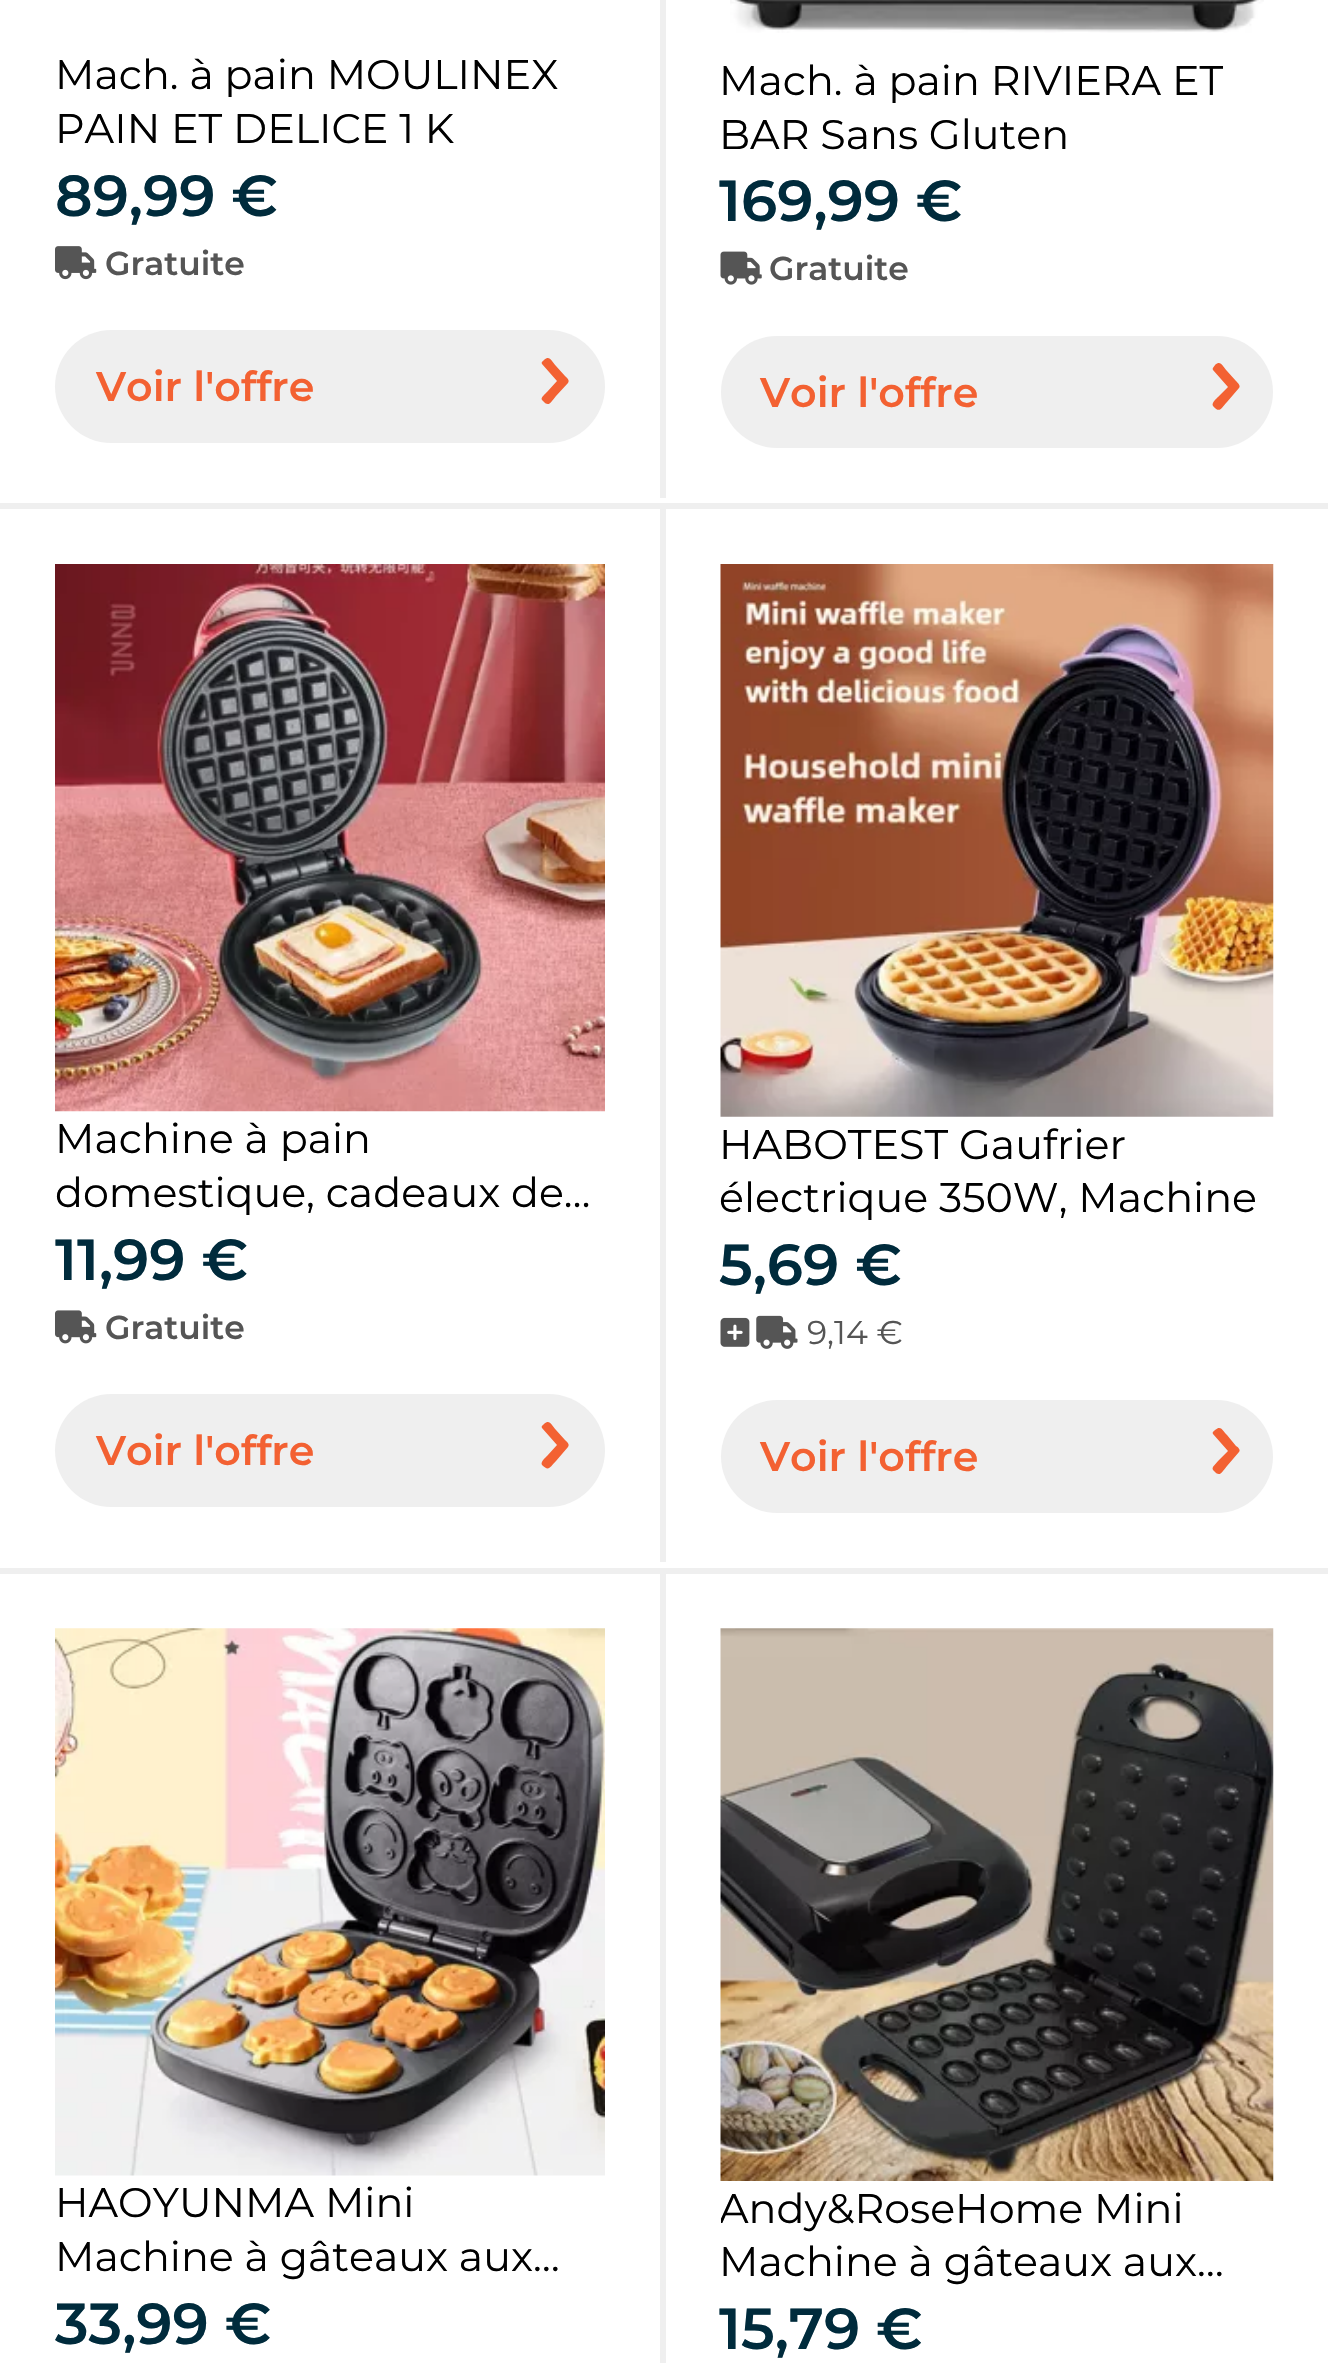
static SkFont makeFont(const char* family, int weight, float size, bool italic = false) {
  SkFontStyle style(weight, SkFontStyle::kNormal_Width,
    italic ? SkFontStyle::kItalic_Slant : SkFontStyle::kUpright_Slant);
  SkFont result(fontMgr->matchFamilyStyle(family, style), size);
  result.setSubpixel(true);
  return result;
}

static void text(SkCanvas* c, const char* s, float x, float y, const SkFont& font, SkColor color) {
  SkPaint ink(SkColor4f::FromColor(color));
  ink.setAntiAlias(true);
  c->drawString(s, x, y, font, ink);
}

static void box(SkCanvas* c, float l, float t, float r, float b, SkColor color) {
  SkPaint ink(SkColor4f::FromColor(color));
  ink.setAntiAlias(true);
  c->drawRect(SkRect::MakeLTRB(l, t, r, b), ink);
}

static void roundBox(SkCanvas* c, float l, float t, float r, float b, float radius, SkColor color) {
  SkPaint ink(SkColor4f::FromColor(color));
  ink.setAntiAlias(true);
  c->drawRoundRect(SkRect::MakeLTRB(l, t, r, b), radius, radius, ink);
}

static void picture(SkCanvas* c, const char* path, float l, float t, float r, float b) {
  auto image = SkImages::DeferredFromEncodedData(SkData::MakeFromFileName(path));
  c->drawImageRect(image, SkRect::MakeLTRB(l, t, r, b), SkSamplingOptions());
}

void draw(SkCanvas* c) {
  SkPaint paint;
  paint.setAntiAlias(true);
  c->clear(0xffffffff);
  box(c, 660, 0, 666, 498, 0xffefefef);
  SkFont face1 = makeFont("Montserrat", 400, 41.25f);
  text(c, "Mach. à pain MOULINEX", 55, 89, face1, 0xff000000);
  text(c, "PAIN ET DELICE 1 K", 55, 143, face1, 0xff000000);
  SkFont face2 = makeFont("Montserrat", 600, 57.75f);
  text(c, "89,99 €", 55, 216, face2, 0xff002b3c);
  picture(c, "img_01.png", 55, 246, 97, 280);
  SkFont face3 = makeFont("Montserrat", 600, 33);
  text(c, "Gratuite", 105, 275, face3, 0xff555555);
  roundBox(c, 55, 330, 605, 443, 56.5f, 0xffefefef);
  SkFont face4 = makeFont("Montserrat", 600, 41.25f);
  text(c, "Voir l'offre", 96, 401, face4, 0xfff36132);
  paint.setColor(0xfff36132);
  c->drawPath(SkPathBuilder().moveTo(568, 383).lineTo(556, 396).cubicTo(550, 403, 549, 408, 542, 400).cubicTo(540, 398, 546, 393, 547, 392).lineTo(557, 381).lineTo(542, 364).cubicTo(541, 362, 543, 361, 544, 360).cubicTo(550, 355, 551, 361, 556, 366).lineTo(565, 376).cubicTo(567, 378, 570, 380, 568, 383).close().detach(), paint);
  picture(c, "img_02.png", 730, 0, 1264, 33);
  text(c, "Mach. à pain RIVIERA ET", 719, 95, face1, 0xff000000);
  text(c, "BAR Sans Gluten", 719, 149, face1, 0xff000000);
  text(c, "169,99 €", 719, 221, face2, 0xff002b3c);
  picture(c, "img_03.png", 720, 251, 762, 285);
  text(c, "Gratuite", 769, 280, face3, 0xff555555);
  roundBox(c, 721, 336, 1273, 448, 56, 0xffefefef);
  text(c, "Voir l'offre", 760, 407, face4, 0xfff36132);
  c->drawPath(SkPathBuilder().moveTo(1239, 388).lineTo(1227, 402).cubicTo(1221, 408, 1220, 414, 1213, 406).cubicTo(1211, 403, 1217, 398, 1218, 397).lineTo(1228, 387).lineTo(1213, 370).cubicTo(1212, 368, 1214, 367, 1215, 365).cubicTo(1221, 360, 1222, 366, 1227, 371).lineTo(1236, 381).cubicTo(1238, 383, 1241, 386, 1239, 388).close().detach(), paint);
  box(c, 0, 503, 1328, 509, 0xffefefef);
  box(c, 660, 503, 666, 1562, 0xffefefef);
  picture(c, "img_04.png", 55, 564, 605, 1112);
  text(c, "Machine à pain", 55, 1153, face1, 0xff000000);
  text(c, "domestique, cadeaux de…", 55, 1207, face1, 0xff000000);
  text(c, "11,99 €", 55, 1280, face2, 0xff002b3c);
  picture(c, "img_05.png", 55, 1310, 97, 1344);
  text(c, "Gratuite", 105, 1339, face3, 0xff555555);
  roundBox(c, 55, 1394, 605, 1507, 56.5f, 0xffefefef);
  text(c, "Voir l'offre", 96, 1465, face4, 0xfff36132);
  c->drawPath(SkPathBuilder().moveTo(568, 1447).lineTo(556, 1461).cubicTo(550, 1467, 549, 1472, 542, 1465).cubicTo(540, 1462, 546, 1457, 547, 1456).lineTo(557, 1445).lineTo(542, 1428).cubicTo(541, 1426, 543, 1425, 544, 1424).cubicTo(550, 1419, 551, 1425, 556, 1430).lineTo(565, 1440).cubicTo(567, 1442, 570, 1444, 568, 1447).close().detach(), paint);
  picture(c, "img_06.png", 720, 564, 1274, 1117);
  text(c, "HABOTEST Gaufrier", 719, 1159, face1, 0xff000000);
  text(c, "électrique 350W, Machine", 719, 1212, face1, 0xff000000);
  text(c, "5,69 €", 719, 1285, face2, 0xff002b3c);
  picture(c, "img_07.png", 720, 1317, 750, 1347);
  picture(c, "img_08.png", 756, 1315, 798, 1349);
  SkFont face5 = makeFont("Montserrat", 400, 33);
  text(c, "9,14 €", 807, 1344, face5, 0xff555555);
  roundBox(c, 721, 1400, 1273, 1513, 56.5f, 0xffefefef);
  text(c, "Voir l'offre", 760, 1471, face4, 0xfff36132);
  c->drawPath(SkPathBuilder().moveTo(1239, 1452).lineTo(1227, 1466).cubicTo(1221, 1473, 1220, 1478, 1213, 1470).cubicTo(1211, 1467, 1217, 1463, 1218, 1461).lineTo(1228, 1451).lineTo(1213, 1434).cubicTo(1212, 1432, 1214, 1431, 1215, 1430).cubicTo(1221, 1425, 1222, 1430, 1227, 1435).lineTo(1236, 1446).cubicTo(1238, 1447, 1241, 1450, 1239, 1452).close().detach(), paint);
  box(c, 0, 1568, 1328, 1574, 0xffefefef);
  box(c, 660, 1568, 666, 2363, 0xffefefef);
  picture(c, "img_09.png", 55, 1628, 605, 2176);
  text(c, "HAOYUNMA Mini", 55, 2217, face1, 0xff000000);
  text(c, "Machine à gâteaux aux…", 55, 2271, face1, 0xff000000);
  text(c, "33,99 €", 55, 2344, face2, 0xff002b3c);
  picture(c, "img_10.png", 720, 1628, 1274, 2181);
  c->save();
  c->clipRect(SkRect::MakeLTRB(721, 2181, 1273, 2288));
  text(c, "Andy&RoseHome Mini", 719, 2223, face1, 0xff000000);
  c->restore();
  text(c, "Machine à gâteaux aux…", 719, 2276, face1, 0xff000000);
  text(c, "15,79 €", 719, 2349, face2, 0xff002b3c);
}
